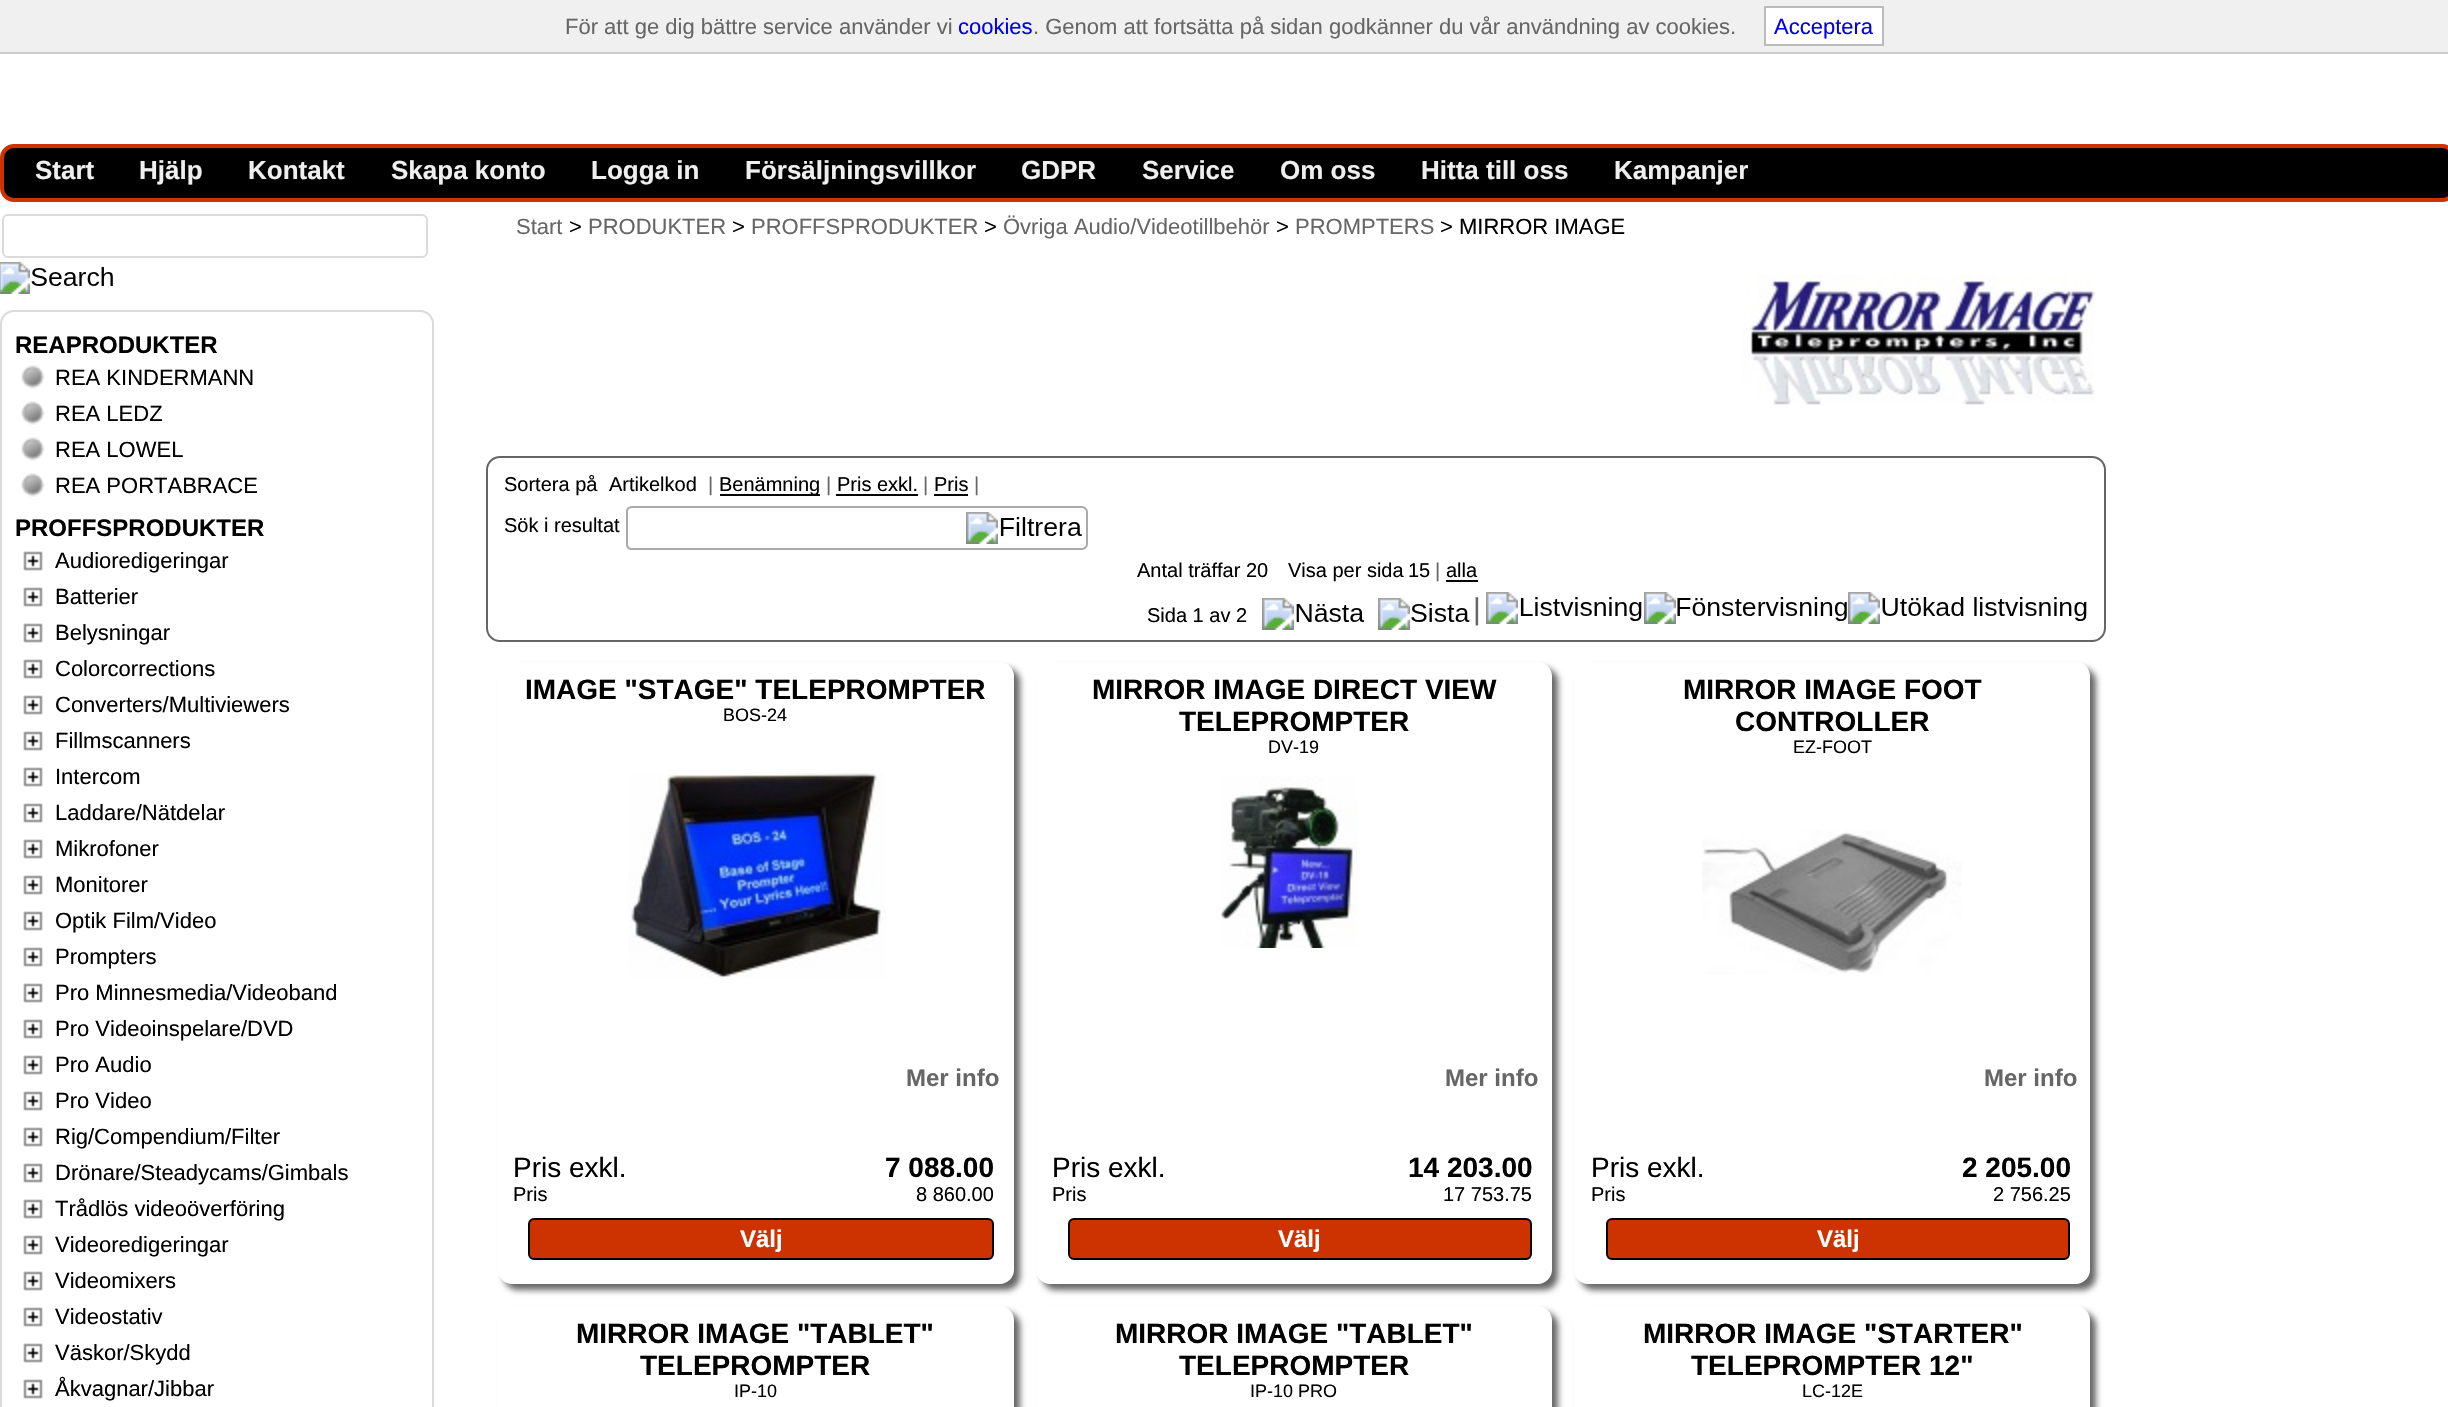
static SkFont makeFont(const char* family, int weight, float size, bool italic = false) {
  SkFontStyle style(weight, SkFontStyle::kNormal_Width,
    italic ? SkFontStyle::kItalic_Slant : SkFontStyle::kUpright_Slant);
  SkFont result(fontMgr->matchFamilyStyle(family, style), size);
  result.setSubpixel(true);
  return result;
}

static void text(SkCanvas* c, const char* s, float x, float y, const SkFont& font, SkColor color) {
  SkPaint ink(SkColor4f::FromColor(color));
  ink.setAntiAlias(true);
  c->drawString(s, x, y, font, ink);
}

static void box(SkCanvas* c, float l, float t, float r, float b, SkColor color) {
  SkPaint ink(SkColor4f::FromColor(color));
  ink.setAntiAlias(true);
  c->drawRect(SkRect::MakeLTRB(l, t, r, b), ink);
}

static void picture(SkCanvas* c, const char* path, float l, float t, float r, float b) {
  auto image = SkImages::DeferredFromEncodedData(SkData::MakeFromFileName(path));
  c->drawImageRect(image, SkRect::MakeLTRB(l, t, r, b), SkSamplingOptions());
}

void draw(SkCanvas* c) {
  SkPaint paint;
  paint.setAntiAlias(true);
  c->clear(0xffffffff);
  box(c, 0, 0, 2448, 52, 0xfff0f0f0);
  box(c, 0, 52, 2448, 54, 0xffcccccc);
  SkFont face1 = makeFont("Liberation Sans", 400, 22);
  text(c, "För att ge dig bättre service använder vi", 565, 34, face1, 0xff666666);
  text(c, "cookies", 958, 34, face1, 0xff0000ee);
  text(c, ". Genom att fortsätta på sidan godkänner du vår användning av cookies.", 1033, 34, face1, 0xff666666);
  paint.setColor(0xffffffff);
  c->drawRect(SkRect::MakeLTRB(1765, 7, 1883, 45), paint);
  paint.setStyle(SkPaint::kStroke_Style);
  paint.setStrokeWidth(2);
  paint.setColor(0xffbbbbbb);
  c->drawRect(SkRect::MakeLTRB(1765, 7, 1883, 45), paint);
  text(c, "Acceptera", 1774, 34, face1, 0xff0000ee);
  paint.setStyle(SkPaint::kFill_Style);
  paint.setColor(0xff000000);
  c->drawRoundRect(SkRect::MakeLTRB(2, 146, 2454, 200), 12, 12, paint);
  paint.setStyle(SkPaint::kStroke_Style);
  paint.setStrokeWidth(4);
  paint.setColor(0xffcc3300);
  c->drawRoundRect(SkRect::MakeLTRB(2, 146, 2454, 200), 12, 12, paint);
  SkFont face2 = makeFont("Liberation Sans", 700, 26);
  text(c, "Start", 35, 179, face2, 0xffefefef);
  text(c, "Hjälp", 139, 179, face2, 0xffefefef);
  text(c, "Kontakt", 248, 179, face2, 0xffefefef);
  text(c, "Skapa konto", 391, 179, face2, 0xffefefef);
  text(c, "Logga in", 591, 179, face2, 0xffefefef);
  text(c, "Försäljningsvillkor", 745, 179, face2, 0xffefefef);
  text(c, "GDPR", 1021, 179, face2, 0xffefefef);
  text(c, "Service", 1142, 179, face2, 0xffefefef);
  text(c, "Om oss", 1280, 179, face2, 0xffefefef);
  text(c, "Hitta till oss", 1421, 179, face2, 0xffefefef);
  text(c, "Kampanjer", 1614, 179, face2, 0xffefefef);
  paint.setStrokeWidth(2);
  paint.setColor(0xffdbdbdb);
  c->drawRoundRect(SkRect::MakeLTRB(3, 215, 427, 257), 5, 5, paint);
  picture(c, "img_01.png", 0, 262, 113, 294);
  c->drawRoundRect(SkRect::MakeLTRB(1, 311, 433, 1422), 13, 13, paint);
  SkFont face3 = makeFont("Liberation Sans", 700, 24);
  text(c, "REAPRODUKTER", 15, 353, face3, 0xff000000);
  picture(c, "img_02.png", 21, 365, 45, 389);
  text(c, "REA KINDERMANN", 55, 385, face1, 0xff000000);
  picture(c, "img_02.png", 21, 401, 45, 425);
  text(c, "REA LEDZ", 55, 421, face1, 0xff000000);
  picture(c, "img_02.png", 21, 437, 45, 461);
  text(c, "REA LOWEL", 55, 457, face1, 0xff000000);
  picture(c, "img_02.png", 21, 473, 45, 497);
  text(c, "REA PORTABRACE", 55, 493, face1, 0xff000000);
  text(c, "PROFFSPRODUKTER", 15, 536, face3, 0xff000000);
  picture(c, "img_03.png", 23, 551, 43, 571);
  text(c, "Audioredigeringar", 55, 568, face1, 0xff000000);
  picture(c, "img_03.png", 23, 587, 43, 607);
  text(c, "Batterier", 55, 604, face1, 0xff000000);
  picture(c, "img_03.png", 23, 623, 43, 643);
  text(c, "Belysningar", 55, 640, face1, 0xff000000);
  picture(c, "img_03.png", 23, 659, 43, 679);
  text(c, "Colorcorrections", 55, 676, face1, 0xff000000);
  picture(c, "img_03.png", 23, 695, 43, 715);
  text(c, "Converters/Multiviewers", 55, 712, face1, 0xff000000);
  picture(c, "img_03.png", 23, 731, 43, 751);
  text(c, "Fillmscanners", 55, 748, face1, 0xff000000);
  picture(c, "img_03.png", 23, 767, 43, 787);
  text(c, "Intercom", 55, 784, face1, 0xff000000);
  picture(c, "img_03.png", 23, 803, 43, 823);
  text(c, "Laddare/Nätdelar", 55, 820, face1, 0xff000000);
  picture(c, "img_03.png", 23, 839, 43, 859);
  text(c, "Mikrofoner", 55, 856, face1, 0xff000000);
  picture(c, "img_03.png", 23, 875, 43, 895);
  text(c, "Monitorer", 55, 892, face1, 0xff000000);
  picture(c, "img_03.png", 23, 911, 43, 931);
  text(c, "Optik Film/Video", 55, 928, face1, 0xff000000);
  picture(c, "img_03.png", 23, 947, 43, 967);
  text(c, "Prompters", 55, 964, face1, 0xff000000);
  picture(c, "img_03.png", 23, 983, 43, 1003);
  text(c, "Pro Minnesmedia/Videoband", 55, 1000, face1, 0xff000000);
  picture(c, "img_03.png", 23, 1019, 43, 1039);
  text(c, "Pro Videoinspelare/DVD", 55, 1036, face1, 0xff000000);
  picture(c, "img_03.png", 23, 1055, 43, 1075);
  text(c, "Pro Audio", 55, 1072, face1, 0xff000000);
  picture(c, "img_03.png", 23, 1091, 43, 1111);
  text(c, "Pro Video", 55, 1108, face1, 0xff000000);
  picture(c, "img_03.png", 23, 1127, 43, 1147);
  text(c, "Rig/Compendium/Filter", 55, 1144, face1, 0xff000000);
  picture(c, "img_03.png", 23, 1163, 43, 1183);
  text(c, "Drönare/Steadycams/Gimbals", 55, 1180, face1, 0xff000000);
  picture(c, "img_03.png", 23, 1199, 43, 1219);
  text(c, "Trådlös videoöverföring", 55, 1216, face1, 0xff000000);
  picture(c, "img_03.png", 23, 1235, 43, 1255);
  text(c, "Videoredigeringar", 55, 1252, face1, 0xff000000);
  picture(c, "img_03.png", 23, 1271, 43, 1291);
  text(c, "Videomixers", 55, 1288, face1, 0xff000000);
  picture(c, "img_03.png", 23, 1307, 43, 1327);
  text(c, "Videostativ", 55, 1324, face1, 0xff000000);
  picture(c, "img_03.png", 23, 1343, 43, 1363);
  text(c, "Väskor/Skydd", 55, 1360, face1, 0xff000000);
  picture(c, "img_03.png", 23, 1379, 43, 1399);
  text(c, "Åkvagnar/Jibbar", 55, 1396, face1, 0xff000000);
  text(c, "Start", 516, 234, face1, 0xff666666);
  text(c, ">", 569, 234, face1, 0xff000000);
  text(c, "PRODUKTER", 588, 234, face1, 0xff666666);
  text(c, ">", 732, 234, face1, 0xff000000);
  text(c, "PROFFSPRODUKTER", 751, 234, face1, 0xff666666);
  text(c, ">", 984, 234, face1, 0xff000000);
  text(c, "Övriga Audio/Videotillbehör", 1003, 234, face1, 0xff666666);
  text(c, ">", 1276, 234, face1, 0xff000000);
  text(c, "PROMPTERS", 1295, 234, face1, 0xff666666);
  text(c, "> MIRROR IMAGE", 1440, 234, face1, 0xff000000);
  picture(c, "img_04.png", 1742, 274, 2095, 405);
  paint.setColor(0xff666666);
  c->drawRoundRect(SkRect::MakeLTRB(487, 457, 2105, 641), 13, 13, paint);
  SkFont face4 = makeFont("Liberation Sans", 400, 20);
  text(c, "Sortera på", 504, 491, face4, 0xff000000);
  text(c, "Artikelkod", 609, 491, face4, 0xff000000);
  text(c, "|", 708, 491, face4, 0xff666666);
  box(c, 720, 494, 820, 496, 0xff000000);
  text(c, "Benämning", 719, 491, face4, 0xff000000);
  text(c, "|", 826, 491, face4, 0xff666666);
  text(c, "Pris exkl.", 837, 491, face4, 0xff000000);
  box(c, 836, 494, 918, 496, 0xff000000);
  text(c, "|", 923, 491, face4, 0xff666666);
  text(c, "Pris", 934, 491, face4, 0xff000000);
  box(c, 934, 494, 968, 496, 0xff000000);
  text(c, "|", 974, 491, face4, 0xff666666);
  text(c, "Sök i resultat", 504, 532, face4, 0xff000000);
  paint.setColor(0xffaaaaaa);
  c->drawPath(SkPathBuilder().moveTo(632, 507).lineTo(957, 507).lineTo(957, 549).lineTo(632, 549).cubicTo(629, 549, 627, 547, 627, 544).lineTo(627, 512).cubicTo(627, 509, 629, 507, 632, 507).close().detach(), paint);
  paint.setStyle(SkPaint::kFill_Style);
  paint.setColor(0xffffffff);
  c->drawPath(SkPathBuilder().moveTo(956, 506).lineTo(1082, 506).cubicTo(1085.5f, 506, 1088, 508.5f, 1088, 512).lineTo(1088, 544).cubicTo(1088, 547.5f, 1085.5f, 550, 1082, 550).lineTo(956, 550).close().detach(), paint);
  paint.setColor(0xffaaaaaa);
  c->drawPath(SkPathBuilder(SkPathFillType::kEvenOdd).moveTo(956, 506).lineTo(1082, 506).cubicTo(1085, 506, 1088, 509, 1088, 512).lineTo(1088, 544).cubicTo(1088, 547, 1085, 550, 1082, 550).lineTo(956, 550).close().moveTo(956, 508).lineTo(1082, 508).cubicTo(1084, 508, 1086, 510, 1086, 512).lineTo(1086, 544).cubicTo(1086, 546, 1084, 548, 1082, 548).lineTo(956, 548).close().detach(), paint);
  picture(c, "img_05.png", 966, 512, 1082, 544);
  text(c, "Antal träffar 20", 1137, 577, face4, 0xff000000);
  text(c, "Visa per sida", 1288, 577, face4, 0xff000000);
  text(c, "15", 1408, 577, face4, 0xff000000);
  text(c, "|", 1435, 577, face4, 0xff666666);
  text(c, "alla", 1446, 577, face4, 0xff000000);
  box(c, 1446, 580, 1478, 582, 0xff000000);
  text(c, "Sida 1 av 2", 1147, 622, face4, 0xff000000);
  picture(c, "img_06.png", 1262, 598, 1365, 630);
  picture(c, "img_07.png", 1378, 598, 1470, 630);
  SkFont face5 = makeFont("Liberation Sans", 400, 30);
  text(c, "|", 1473, 619, face5, 0xff666666);
  picture(c, "img_08.png", 1486, 592, 1642, 624);
  picture(c, "img_09.png", 1644, 592, 1847, 624);
  picture(c, "img_10.png", 1848, 592, 2087, 624);
  c->save();
  c->clipPath(SkPathBuilder(SkPathFillType::kEvenOdd).moveTo(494, 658).lineTo(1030, 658).lineTo(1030, 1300).lineTo(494, 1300).close().moveTo(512, 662).lineTo(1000, 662).cubicTo(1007.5f, 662, 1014, 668.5f, 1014, 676).lineTo(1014, 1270).cubicTo(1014, 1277.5f, 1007.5f, 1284, 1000, 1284).lineTo(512, 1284).cubicTo(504.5f, 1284, 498, 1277.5f, 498, 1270).lineTo(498, 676).cubicTo(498, 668.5f, 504.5f, 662, 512, 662).close().detach(), true);
  paint.setColor(0xff666666);
  paint.setMaskFilter(SkMaskFilter::MakeBlur(kNormal_SkBlurStyle, 3));
  c->drawRoundRect(SkRect::MakeLTRB(504, 668, 1020, 1290), 14, 14, paint);
  paint.setMaskFilter(nullptr);
  c->restore();
  SkFont face6 = makeFont("Liberation Sans", 700, 28);
  text(c, "IMAGE \"STAGE\" TELEPROMPTER", 525, 699, face6, 0xff000000);
  SkFont face7 = makeFont("Liberation Sans", 400, 18);
  text(c, "BOS-24", 723, 721, face7, 0xff000000);
  picture(c, "img_11.png", 628, 773, 886, 979);
  text(c, "Mer info", 906, 1086, face3, 0xff666666);
  SkFont face8 = makeFont("Liberation Sans", 400, 28);
  text(c, "Pris exkl.", 513, 1177, face8, 0xff000000);
  text(c, "7 088.00", 885, 1177, face6, 0xff000000);
  text(c, "Pris", 513, 1201, face4, 0xff000000);
  text(c, "8 860.00", 916, 1201, face4, 0xff000000);
  paint.setColor(0xffcc3300);
  c->drawRoundRect(SkRect::MakeLTRB(529, 1219, 993, 1259), 5, 5, paint);
  paint.setStyle(SkPaint::kStroke_Style);
  paint.setColor(0xff000000);
  c->drawRoundRect(SkRect::MakeLTRB(529, 1219, 993, 1259), 5, 5, paint);
  text(c, "Välj", 740, 1247, face3, 0xffffffff);
  c->save();
  c->clipPath(SkPathBuilder(SkPathFillType::kEvenOdd).moveTo(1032, 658).lineTo(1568, 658).lineTo(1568, 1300).lineTo(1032, 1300).close().moveTo(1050, 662).lineTo(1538, 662).cubicTo(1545.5f, 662, 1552, 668.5f, 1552, 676).lineTo(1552, 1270).cubicTo(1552, 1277.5f, 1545.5f, 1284, 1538, 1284).lineTo(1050, 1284).cubicTo(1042.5f, 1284, 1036, 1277.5f, 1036, 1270).lineTo(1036, 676).cubicTo(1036, 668.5f, 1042.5f, 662, 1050, 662).close().detach(), true);
  paint.setStyle(SkPaint::kFill_Style);
  paint.setColor(0xff666666);
  paint.setMaskFilter(SkMaskFilter::MakeBlur(kNormal_SkBlurStyle, 3));
  c->drawRoundRect(SkRect::MakeLTRB(1042, 668, 1558, 1290), 14, 14, paint);
  paint.setMaskFilter(nullptr);
  c->restore();
  text(c, "MIRROR IMAGE DIRECT VIEW", 1092, 699, face6, 0xff000000);
  text(c, "TELEPROMPTER", 1179, 731, face6, 0xff000000);
  text(c, "DV-19", 1268, 753, face7, 0xff000000);
  picture(c, "img_12.png", 1221, 776, 1357, 948);
  text(c, "Mer info", 1445, 1086, face3, 0xff666666);
  text(c, "Pris exkl.", 1052, 1177, face8, 0xff000000);
  text(c, "14 203.00", 1408, 1177, face6, 0xff000000);
  text(c, "Pris", 1052, 1201, face4, 0xff000000);
  text(c, "17 753.75", 1443, 1201, face4, 0xff000000);
  paint.setColor(0xffcc3300);
  c->drawRoundRect(SkRect::MakeLTRB(1069, 1219, 1531, 1259), 5, 5, paint);
  paint.setStyle(SkPaint::kStroke_Style);
  paint.setColor(0xff000000);
  c->drawRoundRect(SkRect::MakeLTRB(1069, 1219, 1531, 1259), 5, 5, paint);
  text(c, "Välj", 1278, 1247, face3, 0xffffffff);
  c->save();
  c->clipPath(SkPathBuilder(SkPathFillType::kEvenOdd).moveTo(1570, 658).lineTo(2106, 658).lineTo(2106, 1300).lineTo(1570, 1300).close().moveTo(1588, 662).lineTo(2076, 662).cubicTo(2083.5f, 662, 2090, 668.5f, 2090, 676).lineTo(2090, 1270).cubicTo(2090, 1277.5f, 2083.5f, 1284, 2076, 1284).lineTo(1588, 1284).cubicTo(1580.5f, 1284, 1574, 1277.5f, 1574, 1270).lineTo(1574, 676).cubicTo(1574, 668.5f, 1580.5f, 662, 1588, 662).close().detach(), true);
  paint.setStyle(SkPaint::kFill_Style);
  paint.setColor(0xff666666);
  paint.setMaskFilter(SkMaskFilter::MakeBlur(kNormal_SkBlurStyle, 3));
  c->drawRoundRect(SkRect::MakeLTRB(1580, 668, 2096, 1290), 14, 14, paint);
  paint.setMaskFilter(nullptr);
  c->restore();
  text(c, "MIRROR IMAGE FOOT", 1683, 699, face6, 0xff000000);
  text(c, "CONTROLLER", 1735, 731, face6, 0xff000000);
  text(c, "EZ-FOOT", 1793, 753, face7, 0xff000000);
  picture(c, "img_13.png", 1702, 830, 1962, 974);
  text(c, "Mer info", 1984, 1086, face3, 0xff666666);
  text(c, "Pris exkl.", 1591, 1177, face8, 0xff000000);
  text(c, "2 205.00", 1962, 1177, face6, 0xff000000);
  text(c, "Pris", 1591, 1201, face4, 0xff000000);
  text(c, "2 756.25", 1993, 1201, face4, 0xff000000);
  paint.setColor(0xffcc3300);
  c->drawRoundRect(SkRect::MakeLTRB(1607, 1219, 2069, 1259), 5, 5, paint);
  paint.setStyle(SkPaint::kStroke_Style);
  paint.setColor(0xff000000);
  c->drawRoundRect(SkRect::MakeLTRB(1607, 1219, 2069, 1259), 5, 5, paint);
  text(c, "Välj", 1817, 1247, face3, 0xffffffff);
  c->save();
  c->clipPath(SkPathBuilder(SkPathFillType::kEvenOdd).moveTo(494, 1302).lineTo(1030, 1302).lineTo(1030, 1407).lineTo(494, 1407).close().moveTo(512, 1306).lineTo(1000, 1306).cubicTo(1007.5f, 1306, 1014, 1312.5f, 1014, 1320).lineTo(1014, 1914).cubicTo(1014, 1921.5f, 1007.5f, 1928, 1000, 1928).lineTo(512, 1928).cubicTo(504.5f, 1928, 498, 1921.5f, 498, 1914).lineTo(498, 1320).cubicTo(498, 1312.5f, 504.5f, 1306, 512, 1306).close().detach(), true);
  paint.setStyle(SkPaint::kFill_Style);
  paint.setColor(0xff666666);
  paint.setMaskFilter(SkMaskFilter::MakeBlur(kNormal_SkBlurStyle, 3));
  c->drawRoundRect(SkRect::MakeLTRB(504, 1312, 1020, 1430), 14, 14, paint);
  paint.setMaskFilter(nullptr);
  c->restore();
  text(c, "MIRROR IMAGE \"TABLET\"", 576, 1343, face6, 0xff000000);
  text(c, "TELEPROMPTER", 640, 1375, face6, 0xff000000);
  text(c, "IP-10", 734, 1397, face7, 0xff000000);
  c->save();
  c->clipPath(SkPathBuilder(SkPathFillType::kEvenOdd).moveTo(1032, 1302).lineTo(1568, 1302).lineTo(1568, 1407).lineTo(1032, 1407).close().moveTo(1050, 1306).lineTo(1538, 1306).cubicTo(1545.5f, 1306, 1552, 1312.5f, 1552, 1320).lineTo(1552, 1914).cubicTo(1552, 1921.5f, 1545.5f, 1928, 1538, 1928).lineTo(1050, 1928).cubicTo(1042.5f, 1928, 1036, 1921.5f, 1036, 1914).lineTo(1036, 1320).cubicTo(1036, 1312.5f, 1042.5f, 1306, 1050, 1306).close().detach(), true);
  paint.setMaskFilter(SkMaskFilter::MakeBlur(kNormal_SkBlurStyle, 3));
  c->drawRoundRect(SkRect::MakeLTRB(1042, 1312, 1558, 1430), 14, 14, paint);
  paint.setMaskFilter(nullptr);
  c->restore();
  text(c, "MIRROR IMAGE \"TABLET\"", 1115, 1343, face6, 0xff000000);
  text(c, "TELEPROMPTER", 1179, 1375, face6, 0xff000000);
  text(c, "IP-10 PRO", 1250, 1397, face7, 0xff000000);
  c->save();
  c->clipPath(SkPathBuilder(SkPathFillType::kEvenOdd).moveTo(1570, 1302).lineTo(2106, 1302).lineTo(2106, 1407).lineTo(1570, 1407).close().moveTo(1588, 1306).lineTo(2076, 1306).cubicTo(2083.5f, 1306, 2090, 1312.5f, 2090, 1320).lineTo(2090, 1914).cubicTo(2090, 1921.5f, 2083.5f, 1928, 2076, 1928).lineTo(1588, 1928).cubicTo(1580.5f, 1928, 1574, 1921.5f, 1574, 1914).lineTo(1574, 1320).cubicTo(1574, 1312.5f, 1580.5f, 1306, 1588, 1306).close().detach(), true);
  paint.setMaskFilter(SkMaskFilter::MakeBlur(kNormal_SkBlurStyle, 3));
  c->drawRoundRect(SkRect::MakeLTRB(1580, 1312, 2096, 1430), 14, 14, paint);
  paint.setMaskFilter(nullptr);
  c->restore();
  text(c, "MIRROR IMAGE \"STARTER\"", 1643, 1343, face6, 0xff000000);
  text(c, "TELEPROMPTER 12\"", 1691, 1375, face6, 0xff000000);
  text(c, "LC-12E", 1802, 1397, face7, 0xff000000);
}
